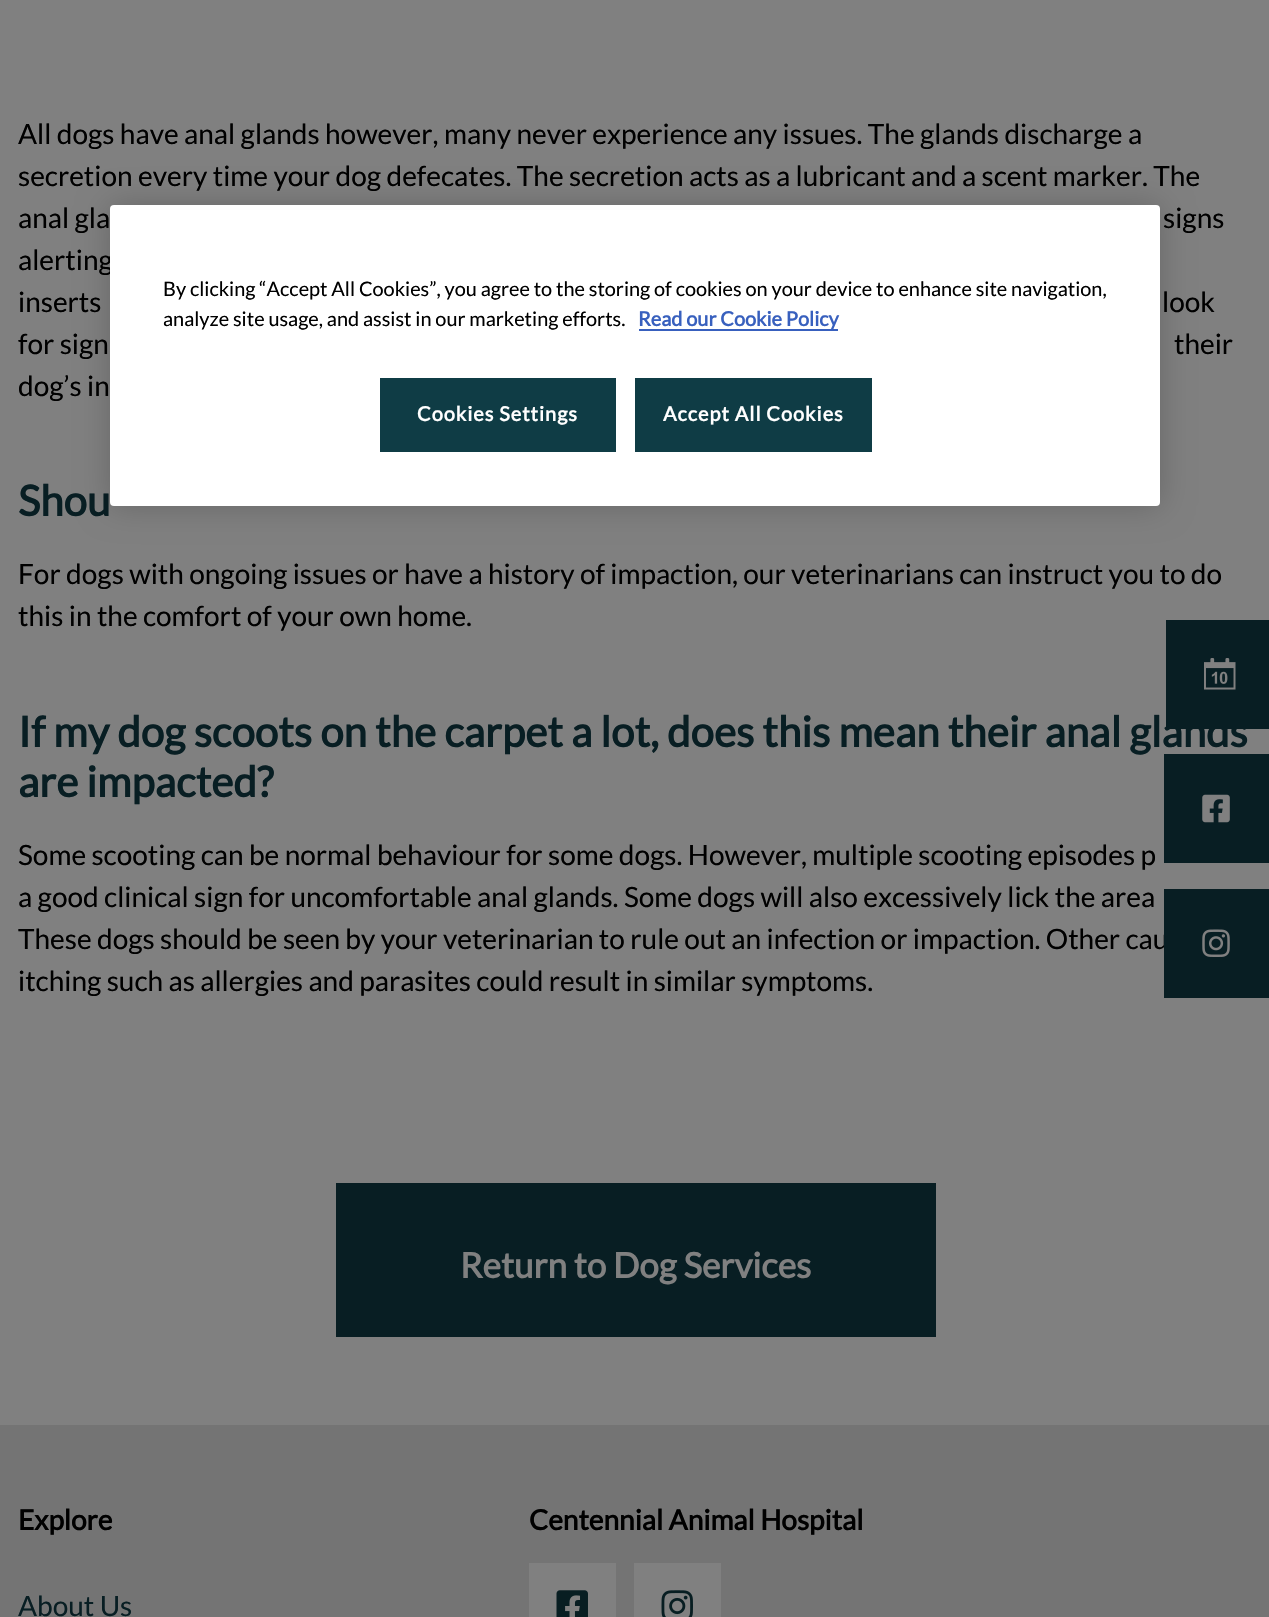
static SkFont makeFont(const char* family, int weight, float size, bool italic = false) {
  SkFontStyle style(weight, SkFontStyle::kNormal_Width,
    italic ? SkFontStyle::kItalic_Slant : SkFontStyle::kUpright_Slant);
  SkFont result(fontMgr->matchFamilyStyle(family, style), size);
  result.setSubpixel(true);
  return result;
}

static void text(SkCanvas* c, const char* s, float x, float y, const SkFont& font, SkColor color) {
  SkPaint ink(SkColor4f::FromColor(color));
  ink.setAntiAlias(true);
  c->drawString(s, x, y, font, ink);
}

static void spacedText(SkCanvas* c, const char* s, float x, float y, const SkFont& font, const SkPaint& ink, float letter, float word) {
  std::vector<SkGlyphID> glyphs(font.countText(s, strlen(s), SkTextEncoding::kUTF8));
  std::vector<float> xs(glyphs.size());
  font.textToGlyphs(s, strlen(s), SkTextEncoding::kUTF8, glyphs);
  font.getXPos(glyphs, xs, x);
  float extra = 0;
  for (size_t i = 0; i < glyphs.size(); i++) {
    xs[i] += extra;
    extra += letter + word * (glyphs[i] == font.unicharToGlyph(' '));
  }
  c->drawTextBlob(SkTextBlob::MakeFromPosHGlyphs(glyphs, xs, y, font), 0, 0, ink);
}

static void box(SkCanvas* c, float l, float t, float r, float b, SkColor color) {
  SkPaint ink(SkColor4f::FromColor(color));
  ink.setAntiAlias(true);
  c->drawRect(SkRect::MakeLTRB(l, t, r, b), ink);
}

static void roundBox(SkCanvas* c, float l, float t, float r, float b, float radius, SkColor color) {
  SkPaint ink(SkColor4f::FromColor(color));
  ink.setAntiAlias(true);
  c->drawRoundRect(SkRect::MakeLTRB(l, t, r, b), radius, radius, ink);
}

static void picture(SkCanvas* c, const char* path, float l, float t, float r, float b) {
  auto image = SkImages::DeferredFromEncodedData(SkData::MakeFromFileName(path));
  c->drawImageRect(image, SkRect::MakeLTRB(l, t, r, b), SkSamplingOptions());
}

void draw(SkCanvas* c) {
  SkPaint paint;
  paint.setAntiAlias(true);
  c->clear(0xff808080);
  SkFont face1 = makeFont("Lato", 400, 28);
  text(c, "All dogs have anal glands however, many never experience any issues. The glands discharge a", 18, 144, face1, 0xff000000);
  text(c, "secretion every time your dog defecates. The secretion acts as a lubricant and a scent marker. The", 18, 186, face1, 0xff000000);
  text(c, "anal gla", 18, 228, face1, 0xff000000);
  text(c, "signs", 1163, 228, face1, 0xff000000);
  text(c, "alerting", 18, 270, face1, 0xff000000);
  text(c, "inserts", 18, 312, face1, 0xff000000);
  text(c, "look", 1162, 312, face1, 0xff000000);
  text(c, "for sign", 18, 354, face1, 0xff000000);
  text(c, "their", 1174, 354, face1, 0xff000000);
  text(c, "dog’s in", 18, 396, face1, 0xff000000);
  SkFont face2 = makeFont("Lato", 700, 42);
  text(c, "Shou", 18, 516, face2, 0xff081e23);
  text(c, "For dogs with ongoing issues or have a history of impaction, our veterinarians can instruct you to do", 18, 584, face1, 0xff000000);
  text(c, "this in the comfort of your own home.", 18, 626, face1, 0xff000000);
  text(c, "If my dog scoots on the carpet a lot, does this mean their anal glands", 18, 747, face2, 0xff081e23);
  text(c, "are impacted?", 18, 797, face2, 0xff081e23);
  text(c, "Some scooting can be normal behaviour for some dogs. However, multiple scooting episodes p", 18, 865, face1, 0xff000000);
  text(c, "a good clinical sign for uncomfortable anal glands. Some dogs will also excessively lick the area", 18, 907, face1, 0xff000000);
  text(c, "These dogs should be seen by your veterinarian to rule out an infection or impaction. Other cau", 18, 949, face1, 0xff000000);
  text(c, "itching such as allergies and parasites could result in similar symptoms.", 18, 991, face1, 0xff000000);
  box(c, 336, 1183, 936, 1337, 0xff081e23);
  SkFont face3 = makeFont("Lato", 700, 35);
  text(c, "Return to Dog Services", 460, 1278, face3, 0xff808080);
  box(c, 1170, 624, 1269, 725, 0xff081e23);
  box(c, 1166, 620, 1269, 624, 0xff081e23);
  box(c, 1166, 725, 1269, 729, 0xff081e23);
  box(c, 1166, 620, 1170, 728, 0xff081e23);
  picture(c, "img_01.png", 1204, 658, 1236, 690);
  box(c, 1168, 758, 1269, 859, 0xff081e23);
  box(c, 1164, 754, 1269, 758, 0xff081e23);
  box(c, 1164, 859, 1269, 863, 0xff081e23);
  box(c, 1164, 754, 1168, 863, 0xff081e23);
  picture(c, "img_02.png", 1202, 794, 1230, 823);
  box(c, 1168, 893, 1269, 994, 0xff081e23);
  box(c, 1164, 889, 1269, 893, 0xff081e23);
  box(c, 1164, 994, 1269, 998, 0xff081e23);
  box(c, 1164, 889, 1168, 998, 0xff081e23);
  picture(c, "img_03.png", 1202, 929, 1230, 957);
  box(c, 0, 1425, 1269, 1617, 0xff747474);
  SkFont face4 = makeFont("Lato", 700, 28);
  text(c, "Explore", 18, 1530, face4, 0xff000000);
  text(c, "About Us", 18, 1616, face1, 0xff081e23);
  text(c, "Centennial Animal Hospital", 529, 1530, face4, 0xff000000);
  box(c, 529, 1563, 616, 1617, 0xff808080);
  picture(c, "img_04.png", 556, 1590, 588, 1617);
  box(c, 634, 1563, 721, 1617, 0xff808080);
  picture(c, "img_05.png", 661, 1590, 693, 1617);
  paint.setColor(0x33000000);
  paint.setMaskFilter(SkMaskFilter::MakeBlur(kNormal_SkBlurStyle, 16));
  c->drawRoundRect(SkRect::MakeLTRB(110, 205, 1160, 506), 4, 4, paint);
  paint.setMaskFilter(nullptr);
  roundBox(c, 110, 205, 1160, 506, 4, 0xffffffff);
  SkFont face5 = makeFont("Lato", 400, 19.9f);
  text(c, "By clicking “Accept All Cookies”, you agree to the storing of cookies on your device to enhance site navigation,", 163, 296, face5, 0xff000000);
  text(c, "analyze site usage, and assist in our marketing efforts.", 163, 326, face5, 0xff000000);
  box(c, 639, 329, 838, 331, 0xff3860be);
  SkFont face6 = makeFont("Lato", 700, 19.9f);
  text(c, "Read our Cookie Policy", 638, 326, face6, 0xff3860be);
  box(c, 380, 378, 616, 452, 0xff0f3c45);
  paint.setColor(0xffffffff);
  spacedText(c, "Cookies Settings", 417, 421, face6, paint, 1, 0);
  box(c, 635, 378, 872, 452, 0xff0f3c45);
  spacedText(c, "Accept All Cookies", 663, 421, face6, paint, 1, 0);
}
